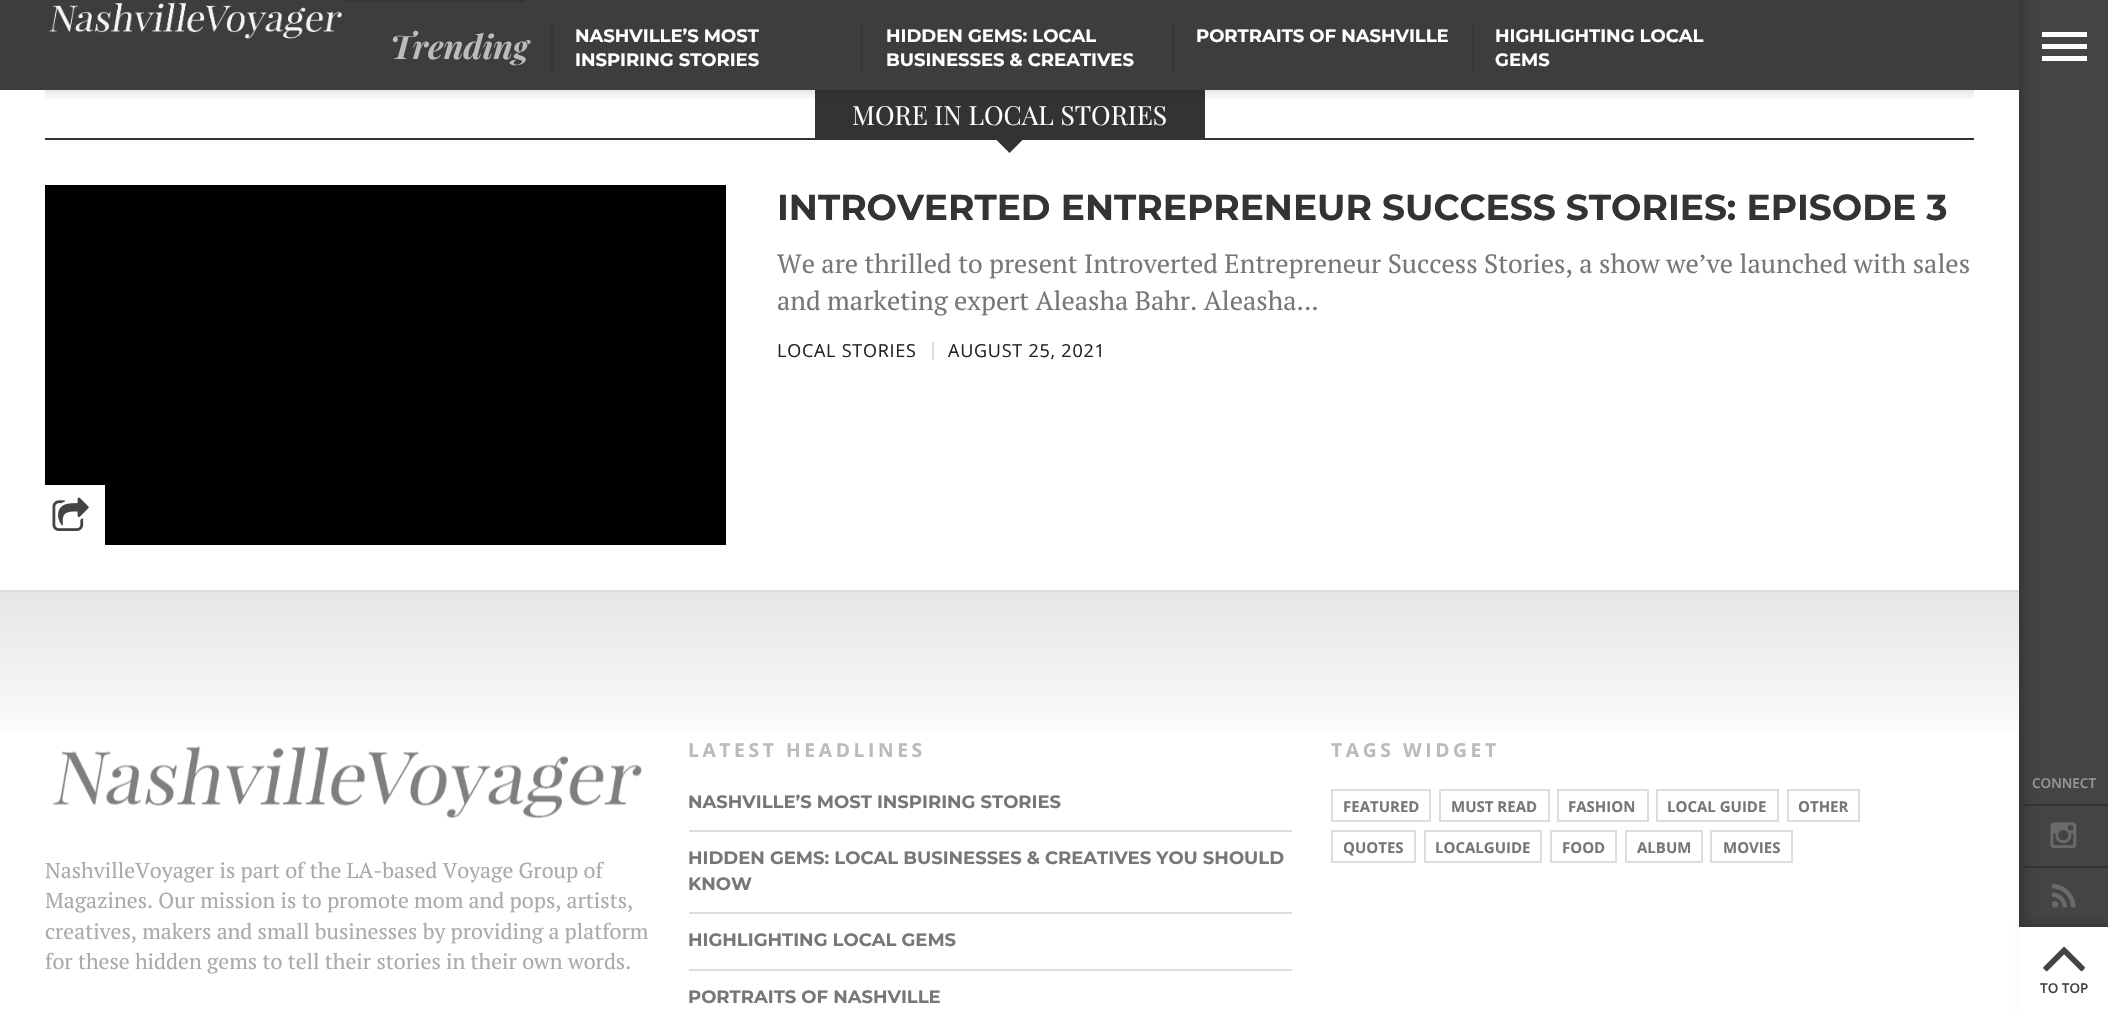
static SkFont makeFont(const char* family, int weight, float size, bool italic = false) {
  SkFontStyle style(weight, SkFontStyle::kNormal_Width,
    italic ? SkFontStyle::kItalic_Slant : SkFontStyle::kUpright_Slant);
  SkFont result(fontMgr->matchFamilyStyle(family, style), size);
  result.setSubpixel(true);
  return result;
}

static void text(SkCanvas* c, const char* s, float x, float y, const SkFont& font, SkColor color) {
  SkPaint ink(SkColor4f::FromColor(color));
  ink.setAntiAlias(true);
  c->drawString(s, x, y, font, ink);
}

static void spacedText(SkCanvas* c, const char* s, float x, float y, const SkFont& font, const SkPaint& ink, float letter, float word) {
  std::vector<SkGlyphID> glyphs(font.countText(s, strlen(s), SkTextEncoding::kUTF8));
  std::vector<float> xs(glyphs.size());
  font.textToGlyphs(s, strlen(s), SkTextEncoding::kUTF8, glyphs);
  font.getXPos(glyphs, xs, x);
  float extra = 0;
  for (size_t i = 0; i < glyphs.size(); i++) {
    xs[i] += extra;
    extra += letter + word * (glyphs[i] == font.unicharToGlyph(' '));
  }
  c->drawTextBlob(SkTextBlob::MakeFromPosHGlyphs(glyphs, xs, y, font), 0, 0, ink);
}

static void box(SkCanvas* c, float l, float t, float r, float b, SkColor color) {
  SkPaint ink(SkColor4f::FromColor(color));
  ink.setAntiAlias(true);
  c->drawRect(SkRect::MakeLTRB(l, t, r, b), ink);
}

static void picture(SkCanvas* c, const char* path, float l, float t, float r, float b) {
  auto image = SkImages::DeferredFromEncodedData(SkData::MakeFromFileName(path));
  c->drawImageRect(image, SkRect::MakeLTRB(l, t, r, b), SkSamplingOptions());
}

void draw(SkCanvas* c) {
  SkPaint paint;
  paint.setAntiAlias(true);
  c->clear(0xffffffff);
  box(c, 0, 0, 2019, 90, 0xff3d3d3d);
  picture(c, "img_01.png", 49, 2, 342, 39);
  SkFont face1 = makeFont("Playfair Display", 700, 33, true);
  text(c, "Trending", 390, 59, face1, 0xffbbbbbb);
  box(c, 551, 23, 553, 71, 0xff363636);
  SkFont face2 = makeFont("Montserrat", 700, 18);
  text(c, "NASHVILLE’S MOST", 575, 42, face2, 0xffffffff);
  text(c, "INSPIRING STORIES", 575, 66, face2, 0xffffffff);
  box(c, 861, 23, 863, 71, 0xff363636);
  text(c, "HIDDEN GEMS: LOCAL", 886, 42, face2, 0xffffffff);
  text(c, "BUSINESSES & CREATIVES", 886, 66, face2, 0xffffffff);
  box(c, 1172, 23, 1174, 71, 0xff363636);
  text(c, "PORTRAITS OF NASHVILLE", 1196, 42, face2, 0xffffffff);
  box(c, 1472, 23, 1474, 71, 0xff363636);
  text(c, "HIGHLIGHTING LOCAL", 1495, 42, face2, 0xffffffff);
  text(c, "GEMS", 1495, 66, face2, 0xffffffff);
  box(c, 815, 90, 1205, 138, 0xff333333);
  {
    const SkColor colors[] = {0x00000000, 0x0d000000, 0x1a000000};
    const float stops[] = {0.2f, 0.7f, 1};
    const SkPoint ends[] = {{1010, 105}, {1010, 90}};
    paint.setShader(SkGradientShader::MakeLinear(ends, colors, stops, 3, SkTileMode::kClamp));
    paint.setAlpha(255);
  }
  c->drawRect(SkRect::MakeLTRB(45, 90, 1974, 99), paint);
  box(c, 345, 0, 525, 2, 0xff353535);
  box(c, 45, 138, 1974, 140, 0xff333333);
  SkFont face3 = makeFont("Playfair Display", 400, 26.4f);
  text(c, "MORE IN LOCAL STORIES", 852, 125, face3, 0xffffffff);
  paint.setShader(nullptr);
  paint.setColor(0xff333333);
  c->drawPath(SkPathBuilder().moveTo(994.5f, 138).lineTo(1024.5f, 138).lineTo(1009.5f, 153).close().detach(), paint);
  box(c, 45, 185, 726, 545, 0xff000000);
  box(c, 45, 485, 105, 545, 0xffffffff);
  picture(c, "img_02.png", 52, 497, 89, 531);
  SkFont face4 = makeFont("Montserrat", 700, 36);
  text(c, "INTROVERTED ENTREPRENEUR SUCCESS STORIES: EPISODE 3", 777, 220, face4, 0xff333333);
  SkFont face5 = makeFont("PT Serif", 400, 26.4f);
  text(c, "We are thrilled to present Introverted Entrepreneur Success Stories, a show we’ve launched with sales", 777, 273, face5, 0xff777777);
  text(c, "and marketing expert Aleasha Bahr. Aleasha...", 777, 310, face5, 0xff777777);
  SkFont face6 = makeFont("Open Sans", 400, 18);
  paint.setColor(0xff222222);
  spacedText(c, "LOCAL STORIES", 777, 357, face6, paint, 0.75f, 0);
  box(c, 932, 342, 934, 360, 0xffdddddd);
  spacedText(c, "AUGUST 25, 2021", 948, 357, face6, paint, 0.75f, 0);
  {
    const SkColor colors[] = {0xffffffff, 0xfff3f3f3, 0xffe6e6e6};
    const float stops[] = {0.75f, 0.85f, 1};
    const SkPoint ends[] = {{1010, 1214}, {1010, 591}};
    paint.setShader(SkGradientShader::MakeLinear(ends, colors, stops, 3, SkTileMode::kClamp));
    paint.setAlpha(255);
  }
  c->drawRect(SkRect::MakeLTRB(0, 592, 2019, 734), paint);
  box(c, 0, 590, 2019, 592, 0xffdddddd);
  SkFont face7 = makeFont("Open Sans", 700, 19.25f);
  paint.setShader(nullptr);
  paint.setColor(0xffbbbbbb);
  spacedText(c, "LATEST HEADLINES", 688, 757, face7, paint, 3.6f, 0);
  text(c, "NASHVILLE’S MOST INSPIRING STORIES", 688, 808, face2, 0xff777777);
  box(c, 689, 830, 1292, 832, 0xffdddddd);
  text(c, "HIDDEN GEMS: LOCAL BUSINESSES & CREATIVES YOU SHOULD", 688, 864, face2, 0xff777777);
  text(c, "KNOW", 688, 890, face2, 0xff777777);
  box(c, 689, 912, 1292, 914, 0xffdddddd);
  text(c, "HIGHLIGHTING LOCAL GEMS", 688, 946, face2, 0xff777777);
  box(c, 689, 969, 1292, 971, 0xffdddddd);
  text(c, "PORTRAITS OF NASHVILLE", 688, 1003, face2, 0xff777777);
  spacedText(c, "TAGS WIDGET", 1331, 757, face7, paint, 3.6f, 0);
  paint.setStyle(SkPaint::kStroke_Style);
  paint.setStrokeWidth(2);
  paint.setColor(0xffdddddd);
  c->drawRect(SkRect::MakeLTRB(1332, 790, 1430, 821), paint);
  SkFont face8 = makeFont("Open Sans", 700, 15);
  text(c, "FEATURED", 1343, 812, face8, 0xff777777);
  c->drawRect(SkRect::MakeLTRB(1440, 790, 1549, 821), paint);
  text(c, "MUST READ", 1451, 812, face8, 0xff777777);
  c->drawRect(SkRect::MakeLTRB(1558, 790, 1648, 821), paint);
  text(c, "FASHION", 1568, 812, face8, 0xff777777);
  c->drawRect(SkRect::MakeLTRB(1657, 790, 1778, 821), paint);
  text(c, "LOCAL GUIDE", 1667, 812, face8, 0xff777777);
  c->drawRect(SkRect::MakeLTRB(1788, 790, 1859, 821), paint);
  text(c, "OTHER", 1798, 812, face8, 0xff777777);
  c->drawRect(SkRect::MakeLTRB(1332, 831, 1415, 862), paint);
  text(c, "QUOTES", 1343, 853, face8, 0xff777777);
  c->drawRect(SkRect::MakeLTRB(1425, 831, 1541, 862), paint);
  text(c, "LOCALGUIDE", 1435, 853, face8, 0xff777777);
  c->drawRect(SkRect::MakeLTRB(1551, 831, 1616, 862), paint);
  text(c, "FOOD", 1562, 853, face8, 0xff777777);
  c->drawRect(SkRect::MakeLTRB(1626, 831, 1702, 862), paint);
  text(c, "ALBUM", 1637, 853, face8, 0xff777777);
  c->drawRect(SkRect::MakeLTRB(1711, 831, 1792, 862), paint);
  text(c, "MOVIES", 1723, 853, face8, 0xff777777);
  picture(c, "img_03.png", 52, 746, 642, 818);
  SkFont face9 = makeFont("PT Serif", 400, 21.6f);
  text(c, "NashvilleVoyager is part of the LA-based Voyage Group of", 45, 878, face9, 0xffaaaaaa);
  text(c, "Magazines. Our mission is to promote mom and pops, artists,", 45, 908, face9, 0xffaaaaaa);
  text(c, "creatives, makers and small businesses by providing a platform", 45, 939, face9, 0xffaaaaaa);
  text(c, "for these hidden gems to tell their stories in their own words.", 45, 969, face9, 0xffaaaaaa);
  paint.setStyle(SkPaint::kFill_Style);
  {
    const SkColor colors[] = {0xff444444, 0xff3d3d3d, 0xff363636};
    const float stops[] = {0.97f, 0.99f, 1};
    const SkPoint ends[] = {{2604, 509}, {2019, 509}};
    paint.setShader(SkGradientShader::MakeLinear(ends, colors, stops, 3, SkTileMode::kClamp));
    paint.setAlpha(255);
  }
  c->drawRect(SkRect::MakeLTRB(2019, 0, 2108, 927), paint);
  box(c, 2042, 32, 2087, 37, 0xffffffff);
  box(c, 2042, 44, 2087, 49, 0xffffffff);
  box(c, 2042, 56, 2087, 61, 0xffffffff);
  SkFont face10 = makeFont("Open Sans", 600, 13.5f);
  text(c, "CONNECT", 2032, 788, face10, 0xff999999);
  box(c, 2019, 804, 2108, 806, 0xff333333);
  picture(c, "img_04.png", 2050, 822, 2077, 849);
  box(c, 2019, 866, 2108, 868, 0xff333333);
  picture(c, "img_05.png", 2052, 884, 2076, 908);
  paint.setShader(nullptr);
  paint.setColor(0x33000000);
  paint.setMaskFilter(SkMaskFilter::MakeBlur(kNormal_SkBlurStyle, 4.5f));
  c->drawRect(SkRect::MakeLTRB(2025, 923, 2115, 1013), paint);
  paint.setMaskFilter(nullptr);
  box(c, 2019, 927, 2108, 1016, 0xffffffff);
  picture(c, "img_06.png", 2043, 946, 2085, 972);
  text(c, "TO TOP", 2040, 993, face10, 0xff444444);
}
